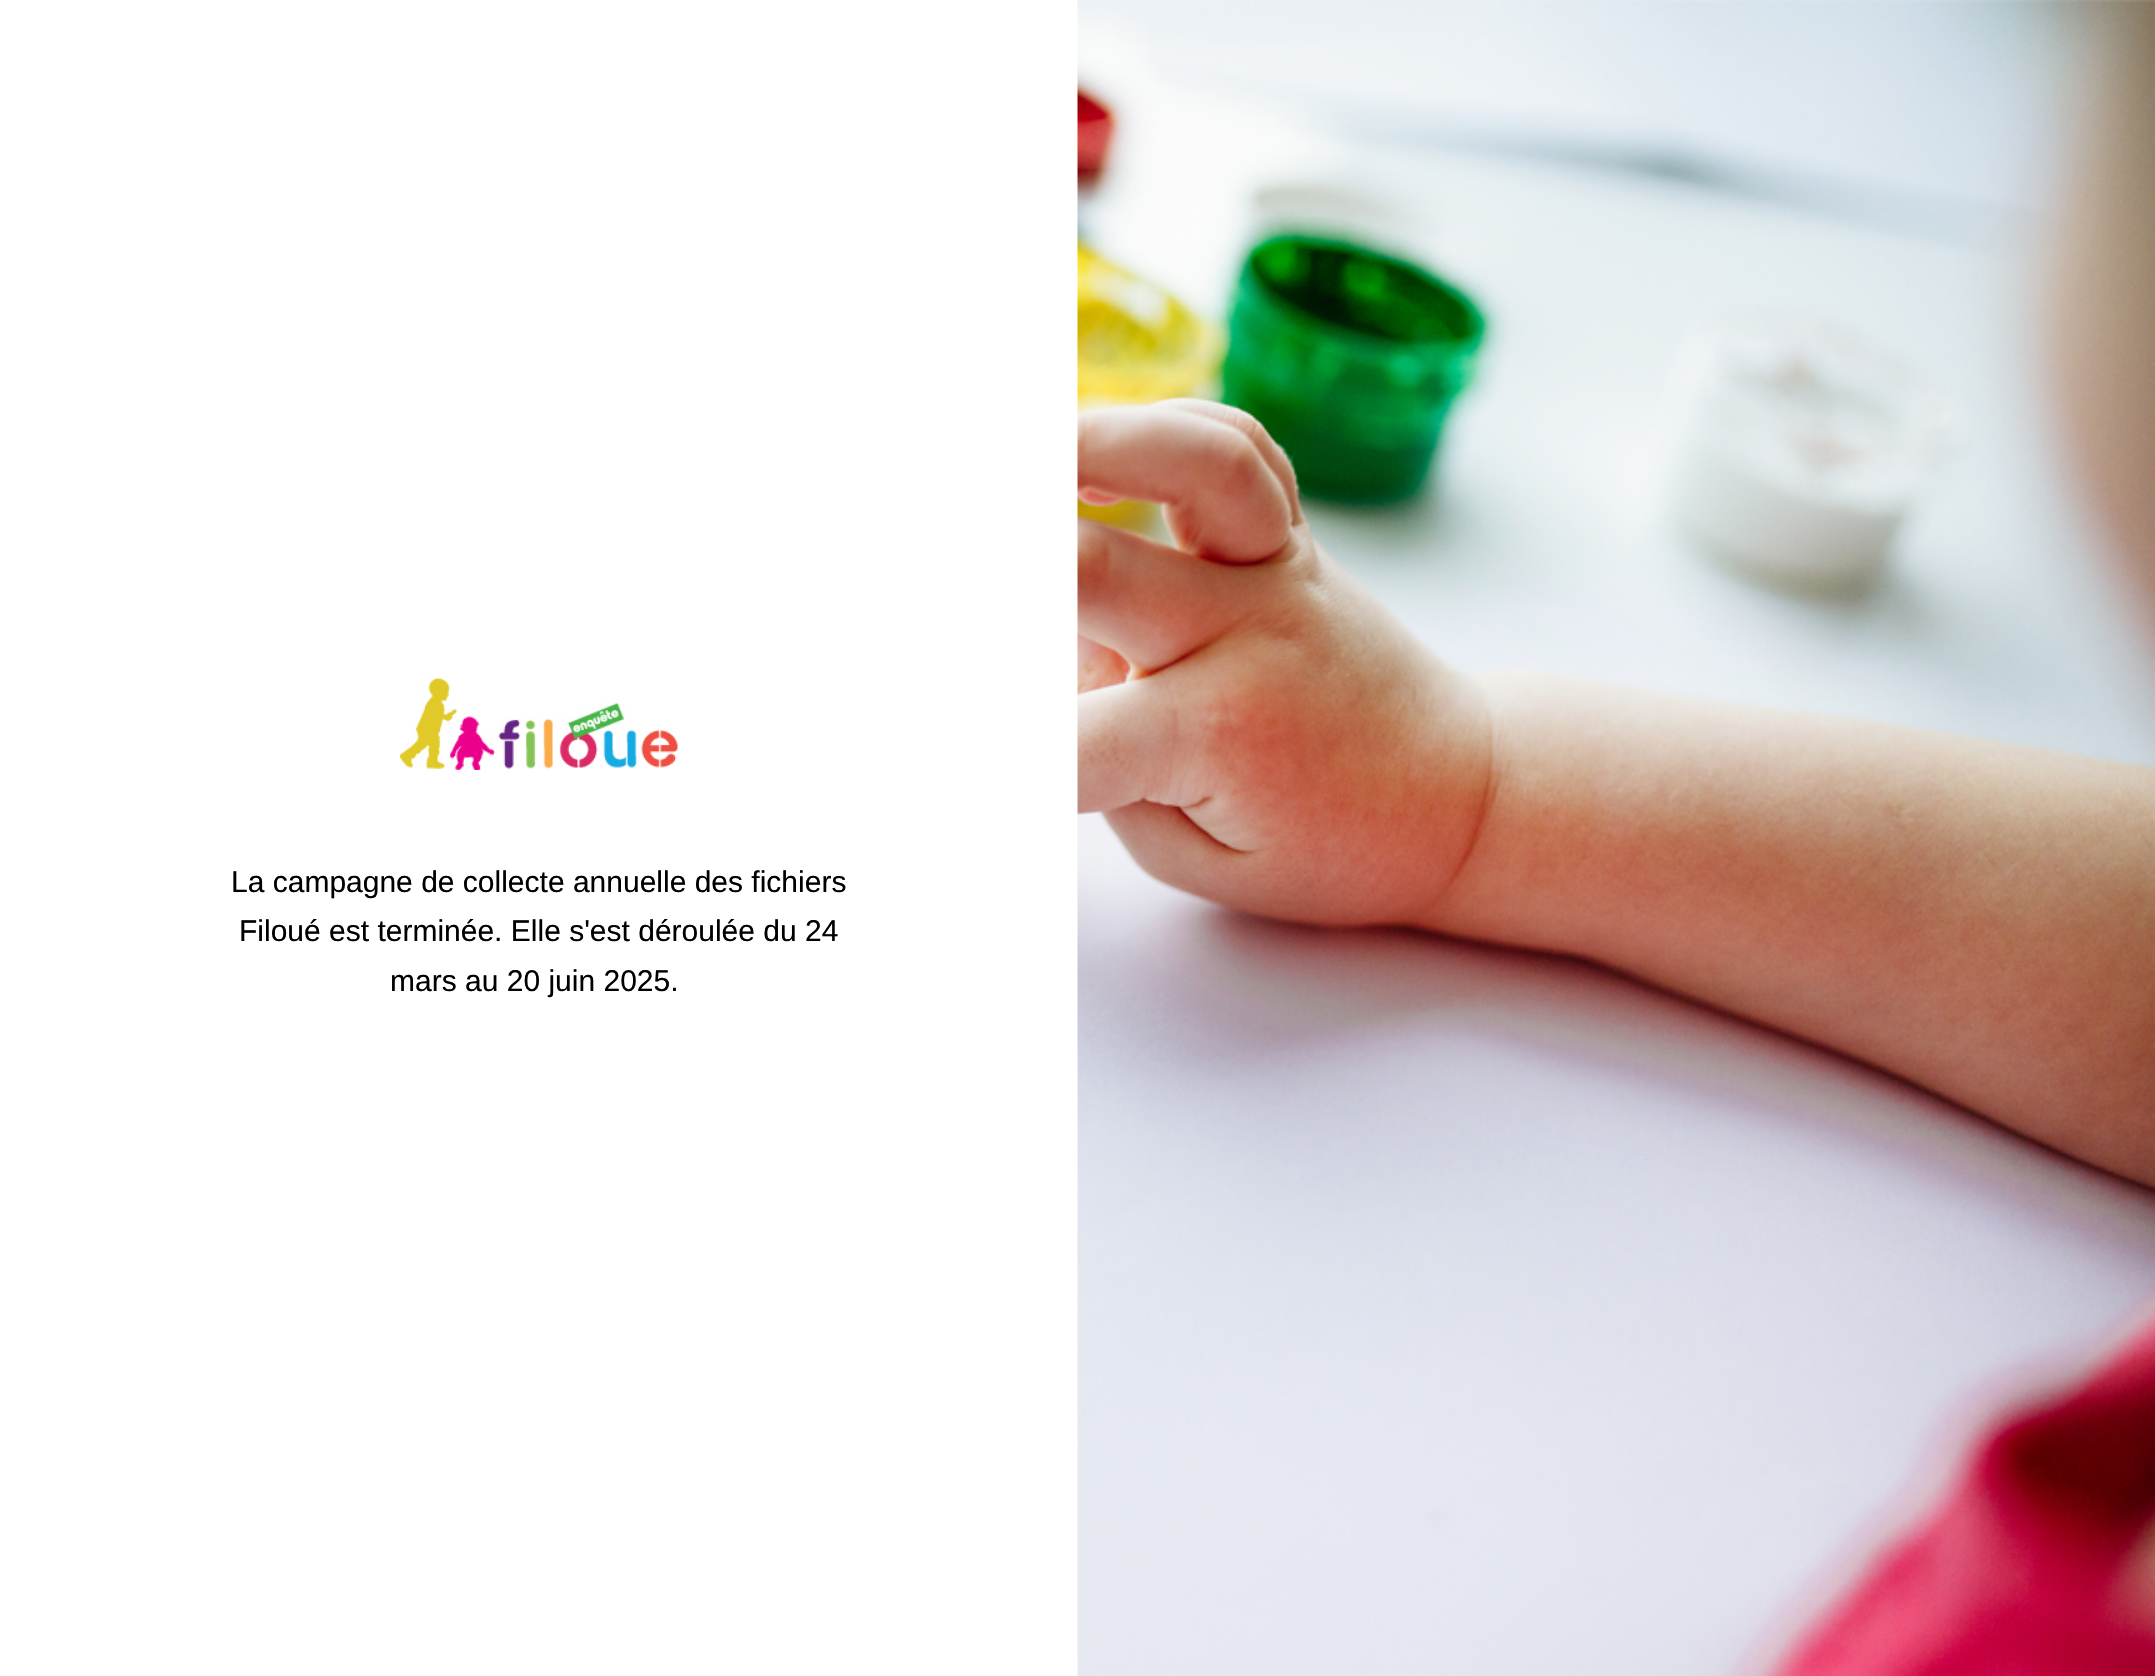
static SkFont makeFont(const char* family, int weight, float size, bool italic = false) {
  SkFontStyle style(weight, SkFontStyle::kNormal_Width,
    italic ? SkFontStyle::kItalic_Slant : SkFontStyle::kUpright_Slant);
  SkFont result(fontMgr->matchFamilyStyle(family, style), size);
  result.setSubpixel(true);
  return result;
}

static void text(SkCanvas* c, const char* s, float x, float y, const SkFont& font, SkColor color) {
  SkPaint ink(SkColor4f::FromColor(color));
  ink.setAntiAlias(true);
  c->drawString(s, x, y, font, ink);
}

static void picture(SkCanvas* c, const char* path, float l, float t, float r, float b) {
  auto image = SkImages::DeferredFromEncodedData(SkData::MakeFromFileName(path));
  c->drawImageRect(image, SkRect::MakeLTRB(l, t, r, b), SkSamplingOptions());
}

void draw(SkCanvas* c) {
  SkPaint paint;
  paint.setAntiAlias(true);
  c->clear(0xffffffff);
  picture(c, "img_01.png", 400, 677, 678, 770);
  SkFont face1 = makeFont("Liberation Sans", 400, 30);
  text(c, "La campagne de collecte annuelle des fichiers", 231, 892, face1, 0xff000000);
  text(c, "Filoué est terminée. Elle s'est déroulée du 24", 239, 941, face1, 0xff000000);
  text(c, "mars au 20 juin 2025.", 390, 991, face1, 0xff000000);
  picture(c, "img_02.png", 1077, 0, 2155, 1676);
}
